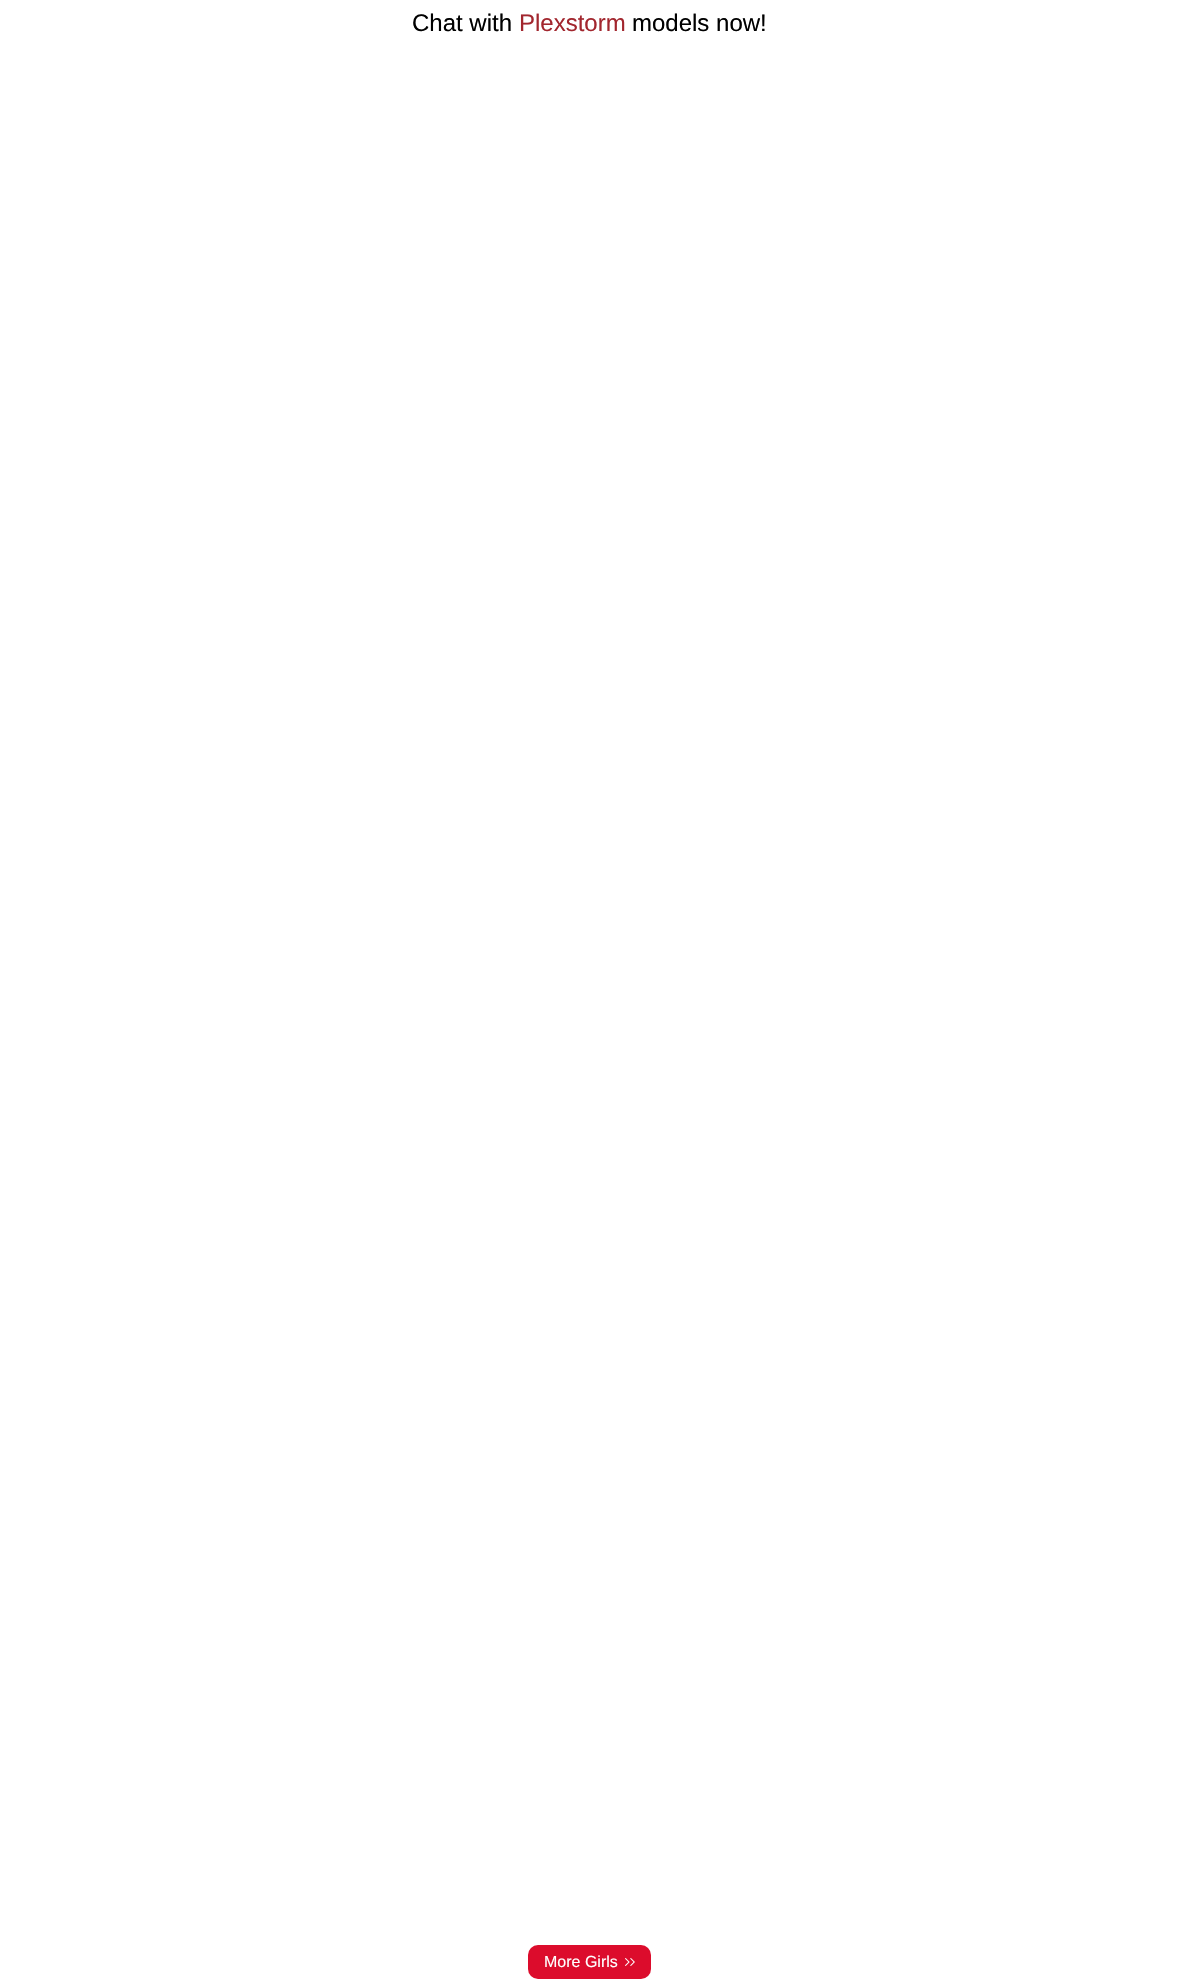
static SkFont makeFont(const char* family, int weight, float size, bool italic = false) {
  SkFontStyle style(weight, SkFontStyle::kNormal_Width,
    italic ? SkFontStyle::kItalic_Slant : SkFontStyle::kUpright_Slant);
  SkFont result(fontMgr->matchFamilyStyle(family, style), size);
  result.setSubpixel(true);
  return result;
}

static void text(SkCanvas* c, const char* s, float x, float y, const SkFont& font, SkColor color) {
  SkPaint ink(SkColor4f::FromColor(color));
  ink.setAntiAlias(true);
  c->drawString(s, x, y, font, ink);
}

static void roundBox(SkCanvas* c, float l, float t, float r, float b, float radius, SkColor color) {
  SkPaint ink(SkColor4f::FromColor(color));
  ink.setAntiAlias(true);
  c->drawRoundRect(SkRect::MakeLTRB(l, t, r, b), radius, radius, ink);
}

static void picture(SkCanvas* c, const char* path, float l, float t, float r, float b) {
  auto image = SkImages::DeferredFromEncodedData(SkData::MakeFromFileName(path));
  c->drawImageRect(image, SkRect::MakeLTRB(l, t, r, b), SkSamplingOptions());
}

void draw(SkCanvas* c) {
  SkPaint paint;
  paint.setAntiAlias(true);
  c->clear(0xffffffff);
  SkFont face1 = makeFont("Liberation Sans", 400, 24);
  text(c, "Chat with", 412, 31, face1, 0xff000000);
  text(c, "Plexstorm", 519, 31, face1, 0xffa2262e);
  text(c, "models now!", 632, 31, face1, 0xff000000);
  roundBox(c, 528, 1945, 651, 1979, 10, 0xffdc0c2c);
  SkFont face2 = makeFont("Liberation Sans", 400, 16);
  text(c, "More Girls", 544, 1967, face2, 0xffffffff);
  picture(c, "img_01.png", 625, 1958, 635, 1966);
}
